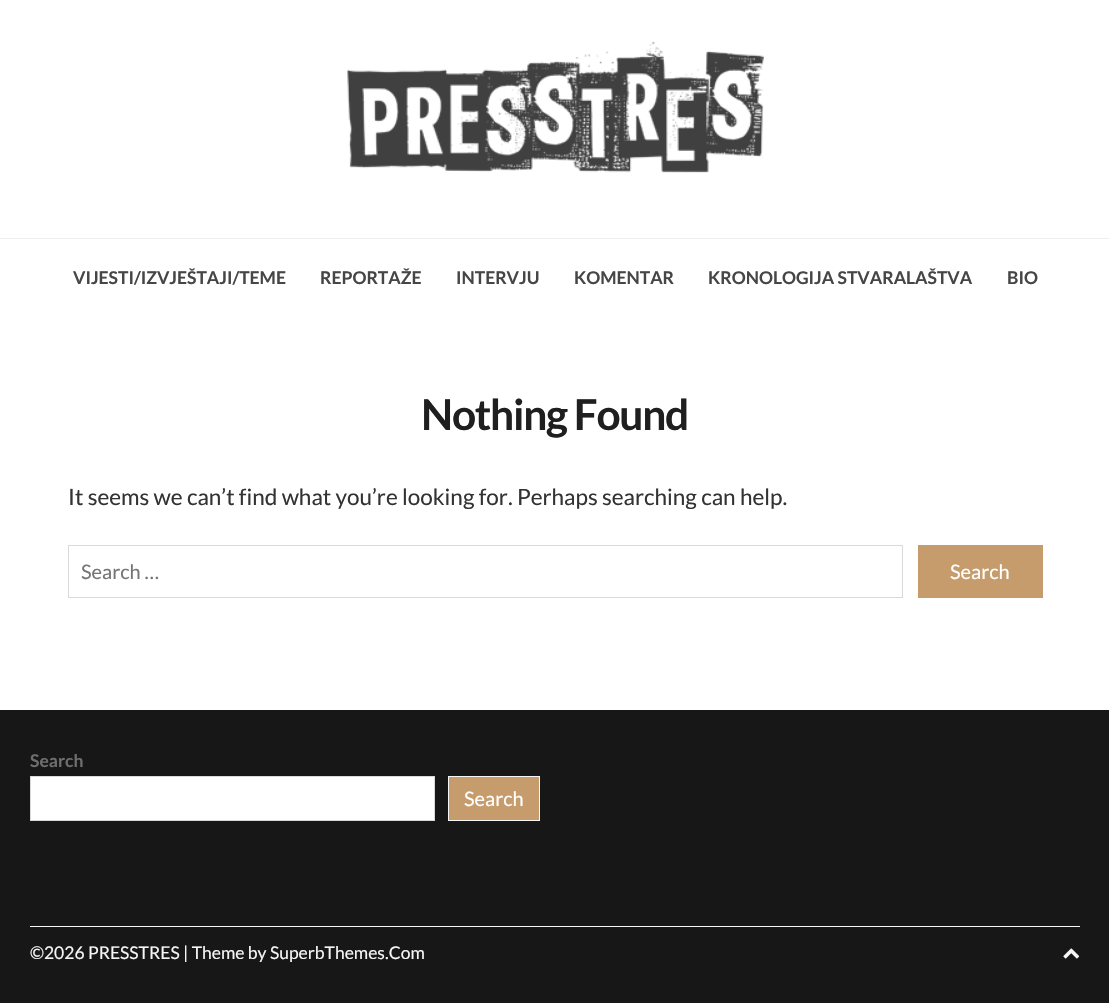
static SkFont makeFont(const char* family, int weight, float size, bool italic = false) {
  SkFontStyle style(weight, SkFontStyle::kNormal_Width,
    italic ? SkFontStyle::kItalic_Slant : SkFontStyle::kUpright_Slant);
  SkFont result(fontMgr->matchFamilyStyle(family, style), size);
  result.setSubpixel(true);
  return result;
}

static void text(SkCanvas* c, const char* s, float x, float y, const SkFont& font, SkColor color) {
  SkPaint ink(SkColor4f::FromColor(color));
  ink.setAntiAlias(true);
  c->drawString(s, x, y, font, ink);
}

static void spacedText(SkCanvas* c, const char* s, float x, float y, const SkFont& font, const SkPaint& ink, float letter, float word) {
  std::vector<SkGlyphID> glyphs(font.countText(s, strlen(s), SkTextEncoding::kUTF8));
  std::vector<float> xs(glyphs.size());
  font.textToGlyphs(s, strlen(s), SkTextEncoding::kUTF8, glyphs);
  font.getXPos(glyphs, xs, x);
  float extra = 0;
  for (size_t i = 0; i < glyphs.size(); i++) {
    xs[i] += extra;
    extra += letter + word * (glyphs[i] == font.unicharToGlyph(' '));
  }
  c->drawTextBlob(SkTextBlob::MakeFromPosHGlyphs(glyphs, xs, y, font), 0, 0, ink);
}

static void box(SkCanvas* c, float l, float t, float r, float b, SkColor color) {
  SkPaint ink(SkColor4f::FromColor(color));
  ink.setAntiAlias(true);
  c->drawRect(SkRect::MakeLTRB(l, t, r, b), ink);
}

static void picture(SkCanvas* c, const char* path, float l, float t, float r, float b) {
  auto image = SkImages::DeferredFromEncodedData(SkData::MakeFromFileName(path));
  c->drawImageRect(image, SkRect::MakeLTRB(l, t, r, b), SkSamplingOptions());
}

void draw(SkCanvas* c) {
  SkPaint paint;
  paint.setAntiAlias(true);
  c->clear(0xffffffff);
  picture(c, "img_01.png", 347, 41, 764, 173);
  box(c, 0, 238, 1109, 239, 0xffedeeee);
  SkFont face1 = makeFont("Lato", 700, 17.5f);
  text(c, "VIJESTI/IZVJEŠTAJI/TEME", 73, 284, face1, 0xff464646);
  text(c, "REPORTAŽE", 320, 284, face1, 0xff464646);
  text(c, "INTERVJU", 456, 284, face1, 0xff464646);
  text(c, "KOMENTAR", 574, 284, face1, 0xff464646);
  text(c, "KRONOLOGIJA STVARALAŠTVA", 708, 284, face1, 0xff464646);
  text(c, "BIO", 1007, 284, face1, 0xff464646);
  SkFont face2 = makeFont("Lato", 700, 42.5f);
  paint.setColor(0xff1f1f1f);
  spacedText(c, "Nothing Found", 421, 430, face2, paint, -1.25f, 0);
  SkFont face3 = makeFont("Lato", 400, 22.5f);
  text(c, "It seems we can’t find what you’re looking for. Perhaps searching can help.", 68, 505, face3, 0xff333333);
  paint.setStyle(SkPaint::kStroke_Style);
  paint.setStrokeWidth(1);
  paint.setColor(0xffd9d9d9);
  c->drawRect(SkRect::MakeLTRB(68.5f, 545.5f, 902.5f, 597.5f), paint);
  SkFont face4 = makeFont("Lato", 400, 20);
  text(c, "Search …", 81, 579, face4, 0xff757575);
  box(c, 918, 545, 1043, 598, 0xffc69c6d);
  text(c, "Search", 950, 579, face4, 0xffffffff);
  box(c, 0, 710, 1109, 1003, 0xff171717);
  box(c, 30, 926, 1080, 927, 0xfff6f6f6);
  text(c, "Search", 30, 767, face1, 0xff6e6e6e);
  paint.setStyle(SkPaint::kFill_Style);
  paint.setColor(0xffffffff);
  c->drawRect(SkRect::MakeLTRB(30.5f, 776.5f, 434.5f, 820.5f), paint);
  paint.setStyle(SkPaint::kStroke_Style);
  paint.setColor(0xffd9d9d9);
  c->drawRect(SkRect::MakeLTRB(30.5f, 776.5f, 434.5f, 820.5f), paint);
  paint.setStyle(SkPaint::kFill_Style);
  paint.setColor(0xffc69c6d);
  c->drawRect(SkRect::MakeLTRB(448.5f, 776.5f, 539.5f, 820.5f), paint);
  paint.setStyle(SkPaint::kStroke_Style);
  paint.setColor(0xfff6f6f6);
  c->drawRect(SkRect::MakeLTRB(448.5f, 776.5f, 539.5f, 820.5f), paint);
  text(c, "Search", 464, 806, face4, 0xffffffff);
  SkFont face5 = makeFont("Lato", 400, 17.5f);
  text(c, "©2026 PRESSTRES | Theme by SuperbThemes.Com", 30, 959, face5, 0xfff6f6f6);
  picture(c, "img_02.png", 1063, 948, 1080, 959);
}
